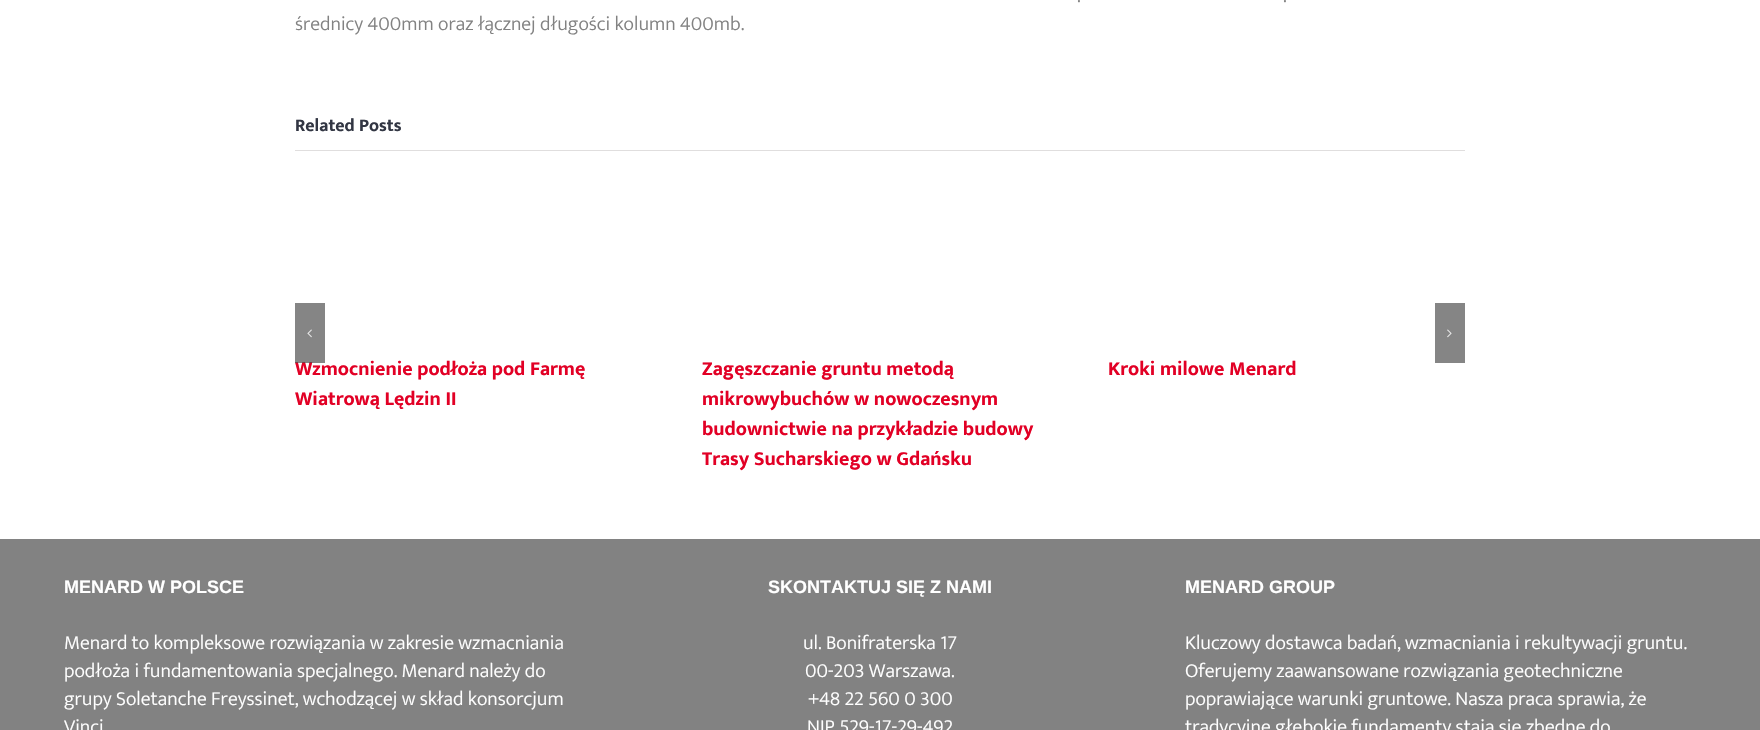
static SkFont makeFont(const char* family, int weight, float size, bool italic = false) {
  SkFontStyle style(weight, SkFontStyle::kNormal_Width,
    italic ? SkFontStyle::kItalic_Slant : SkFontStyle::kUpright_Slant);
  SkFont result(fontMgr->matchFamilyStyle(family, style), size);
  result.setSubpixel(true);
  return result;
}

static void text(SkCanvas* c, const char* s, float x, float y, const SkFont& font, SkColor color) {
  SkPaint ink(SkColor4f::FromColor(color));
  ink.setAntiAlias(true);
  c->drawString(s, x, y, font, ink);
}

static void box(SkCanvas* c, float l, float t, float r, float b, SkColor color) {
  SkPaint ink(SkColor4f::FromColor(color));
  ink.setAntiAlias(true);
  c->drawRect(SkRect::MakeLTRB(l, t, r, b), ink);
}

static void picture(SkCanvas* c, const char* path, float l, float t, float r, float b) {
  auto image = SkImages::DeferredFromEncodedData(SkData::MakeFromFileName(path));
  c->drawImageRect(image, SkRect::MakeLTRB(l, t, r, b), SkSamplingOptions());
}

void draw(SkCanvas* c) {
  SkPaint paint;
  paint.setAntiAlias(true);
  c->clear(0xffffffff);
  SkFont face1 = makeFont("Mukta", 300, 20);
  text(c, ".", 1077, 2, face1, 0xff828282);
  text(c, ".", 1283, 2, face1, 0xff828282);
  text(c, "średnicy 400mm oraz łącznej długości kolumn 400mb.", 295, 30, face1, 0xff828282);
  box(c, 295, 150, 1465, 151, 0xffe0dede);
  SkFont face2 = makeFont("Mukta", 700, 18);
  text(c, "Related Posts", 295, 131, face2, 0xff323643);
  SkFont face3 = makeFont("Mukta", 700, 20);
  text(c, "Wzmocnienie podłoża pod Farmę", 295, 375, face3, 0xffe20025);
  box(c, 295, 303, 325, 363, 0x7a000000);
  picture(c, "img_01.png", 307, 329, 312, 338);
  box(c, 1435, 303, 1465, 363, 0xff858585);
  picture(c, "img_02.png", 1447, 329, 1452, 338);
  text(c, "Wiatrową Lędzin II", 295, 405, face3, 0xffe20025);
  text(c, "Zagęszczanie gruntu metodą", 702, 375, face3, 0xffe20025);
  text(c, "mikrowybuchów w nowoczesnym", 702, 405, face3, 0xffe20025);
  text(c, "budownictwie na przykładzie budowy", 702, 435, face3, 0xffe20025);
  text(c, "Trasy Sucharskiego w Gdańsku", 702, 465, face3, 0xffe20025);
  text(c, "Kroki milowe Menard", 1108, 375, face3, 0xffe20025);
  box(c, 0, 539, 1760, 730, 0xff828282);
  SkFont face4 = makeFont("Liberation Sans", 700, 18);
  text(c, "MENARD W POLSCE", 64, 593, face4, 0xffffffff);
  text(c, "Menard to kompleksowe rozwiązania w zakresie wzmacniania", 64, 649, face1, 0xffffffff);
  text(c, "podłoża i fundamentowania specjalnego. Menard należy do", 64, 677, face1, 0xffffffff);
  text(c, "grupy Soletanche Freyssinet, wchodzącej w skład konsorcjum", 64, 705, face1, 0xffffffff);
  text(c, "Vinci", 64, 733, face1, 0xffffffff);
  text(c, "SKONTAKTUJ SIĘ Z NAMI", 768, 593, face4, 0xffffffff);
  text(c, "ul. Bonifraterska 17", 803, 649, face1, 0xffffffff);
  text(c, "00-203 Warszawa.", 805, 677, face1, 0xffffffff);
  text(c, "+48 22 560 0 300", 808, 705, face1, 0xffffffff);
  text(c, "NIP 529-17-29-492", 807, 733, face1, 0xffffffff);
  text(c, "MENARD GROUP", 1185, 593, face4, 0xffffffff);
  text(c, "Kluczowy dostawca badań, wzmacniania i rekultywacji gruntu.", 1185, 649, face1, 0xffffffff);
  text(c, "Oferujemy zaawansowane rozwiązania geotechniczne", 1185, 677, face1, 0xffffffff);
  text(c, "poprawiające warunki gruntowe. Nasza praca sprawia, że", 1185, 705, face1, 0xffffffff);
  text(c, "tradycyjne głębokie fundamenty stają się zbędne do", 1185, 733, face1, 0xffffffff);
}
